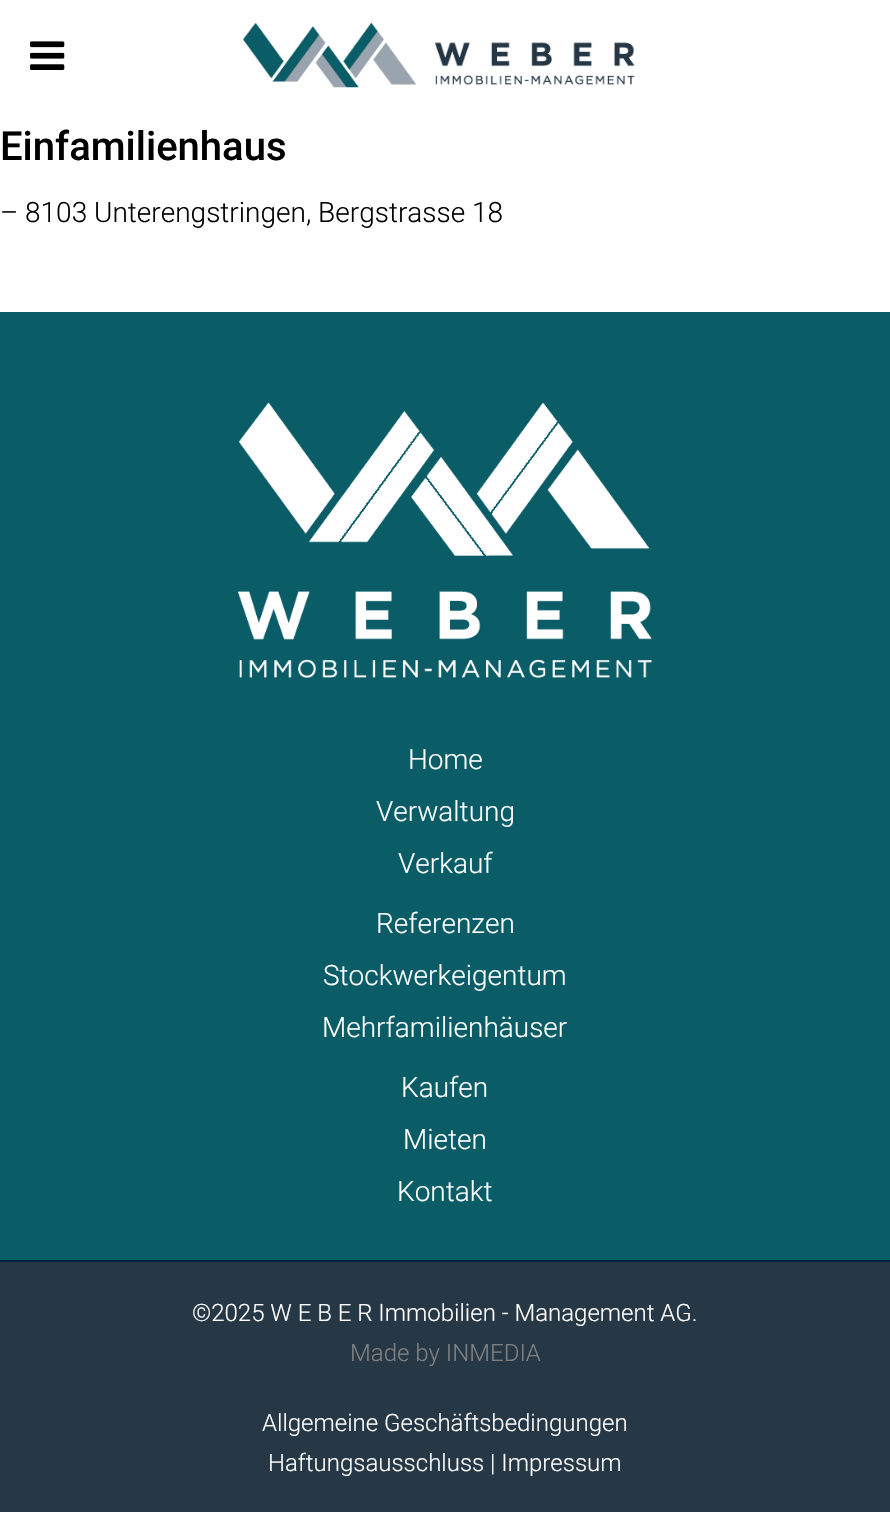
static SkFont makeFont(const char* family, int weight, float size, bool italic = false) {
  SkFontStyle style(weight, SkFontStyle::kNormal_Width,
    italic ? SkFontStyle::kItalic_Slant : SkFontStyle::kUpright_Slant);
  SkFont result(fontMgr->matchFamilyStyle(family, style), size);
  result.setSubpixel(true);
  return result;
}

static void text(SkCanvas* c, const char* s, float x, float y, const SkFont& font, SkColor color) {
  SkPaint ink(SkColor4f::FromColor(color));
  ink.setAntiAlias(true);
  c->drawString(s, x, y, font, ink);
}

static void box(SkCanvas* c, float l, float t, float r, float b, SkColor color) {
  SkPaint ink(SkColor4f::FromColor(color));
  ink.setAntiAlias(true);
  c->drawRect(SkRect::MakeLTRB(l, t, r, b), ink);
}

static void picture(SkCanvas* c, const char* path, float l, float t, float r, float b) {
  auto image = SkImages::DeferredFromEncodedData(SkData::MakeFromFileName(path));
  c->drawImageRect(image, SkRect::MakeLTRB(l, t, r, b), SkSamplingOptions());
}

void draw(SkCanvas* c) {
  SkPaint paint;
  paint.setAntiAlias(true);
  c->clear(0xffffffff);
  picture(c, "img_01.png", 30, 41, 65, 70);
  picture(c, "img_02.png", 242, 23, 635, 88);
  SkFont face1 = makeFont("Roboto", 500, 40);
  text(c, "Einfamilienhaus", 0, 160, face1, 0xff000000);
  SkFont face2 = makeFont("Roboto", 300, 28);
  text(c, "– 8103 Unterengstringen, Bergstrasse 18", 0, 222, face2, 0xff000000);
  box(c, 0, 312, 890, 1260, 0xff0a5c67);
  picture(c, "img_03.png", 238, 402, 652, 678);
  text(c, "Home", 408, 769, face2, 0xffffffff);
  text(c, "Verwaltung", 376, 821, face2, 0xffffffff);
  text(c, "Verkauf", 398, 873, face2, 0xffffffff);
  text(c, "Referenzen", 376, 933, face2, 0xffffffff);
  text(c, "Stockwerkeigentum", 323, 985, face2, 0xffffffff);
  text(c, "Mehrfamilienhäuser", 322, 1037, face2, 0xffffffff);
  text(c, "Kaufen", 401, 1097, face2, 0xffffffff);
  text(c, "Mieten", 403, 1149, face2, 0xffffffff);
  text(c, "Kontakt", 397, 1201, face2, 0xffffffff);
  box(c, 0, 1262, 890, 1512, 0xff263846);
  box(c, 0, 1260, 890, 1262, 0xff00243f);
  SkFont face3 = makeFont("Roboto", 300, 24);
  text(c, "©2025 W E B E R Immobilien - Management AG.", 192, 1321, face3, 0xffffffff);
  text(c, "Made by INMEDIA", 350, 1361, face3, 0xff808080);
  text(c, "Allgemeine Geschäftsbedingungen", 262, 1431, face3, 0xffffffff);
  text(c, "Haftungsausschluss | Impressum", 268, 1471, face3, 0xffffffff);
}
